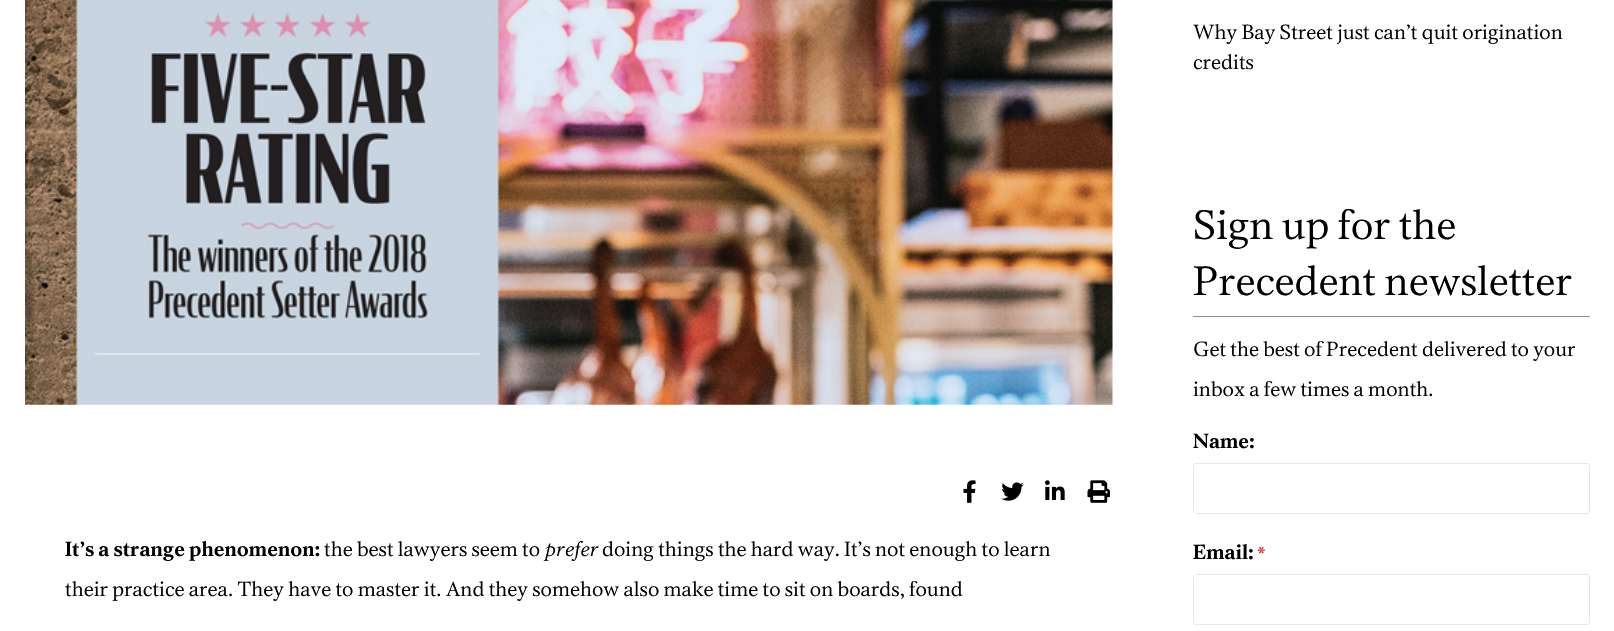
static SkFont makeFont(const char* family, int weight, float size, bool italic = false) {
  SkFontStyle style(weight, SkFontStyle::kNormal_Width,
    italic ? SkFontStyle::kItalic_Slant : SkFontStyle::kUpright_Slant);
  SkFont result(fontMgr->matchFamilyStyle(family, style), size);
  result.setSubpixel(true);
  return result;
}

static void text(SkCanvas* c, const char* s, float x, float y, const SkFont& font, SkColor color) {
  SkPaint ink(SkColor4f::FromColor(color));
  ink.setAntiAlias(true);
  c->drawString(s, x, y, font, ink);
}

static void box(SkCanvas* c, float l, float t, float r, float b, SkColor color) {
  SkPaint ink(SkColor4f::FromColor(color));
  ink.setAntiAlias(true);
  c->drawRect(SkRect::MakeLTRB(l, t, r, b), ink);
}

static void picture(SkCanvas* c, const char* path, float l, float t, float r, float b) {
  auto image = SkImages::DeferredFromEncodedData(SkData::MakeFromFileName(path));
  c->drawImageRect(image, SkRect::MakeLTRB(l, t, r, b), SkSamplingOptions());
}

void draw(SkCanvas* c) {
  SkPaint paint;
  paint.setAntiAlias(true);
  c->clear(0xffffffff);
  SkFont face1 = makeFont("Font", 400, 20);
  text(c, "Why Bay Street just can’t quit origination", 1193, 39, face1, 0xff000000);
  text(c, "credits", 1193, 69, face1, 0xff000000);
  box(c, 1193, 316, 1590, 317, 0xff8b8d94);
  SkFont face2 = makeFont("Font", 400, 40);
  text(c, "Sign up for the", 1193, 239, face2, 0xff000000);
  text(c, "Precedent newsletter", 1193, 295, face2, 0xff000000);
  text(c, "Get the best of Precedent delivered to your", 1193, 356, face1, 0xff000000);
  text(c, "inbox a few times a month.", 1193, 396, face1, 0xff000000);
  SkFont face3 = makeFont("Font", 700, 20);
  text(c, "Name:", 1193, 448, face3, 0xff000000);
  paint.setStyle(SkPaint::kStroke_Style);
  paint.setStrokeWidth(1);
  paint.setColor(0xffe7e7e7);
  c->drawRoundRect(SkRect::MakeLTRB(1193.5f, 463.5f, 1589.5f, 513.5f), 2, 2, paint);
  text(c, "Email:", 1193, 559, face3, 0xff000000);
  SkFont face4 = makeFont("Font", 700, 16);
  text(c, "*", 1257, 559, face4, 0xffe11b22);
  c->drawRoundRect(SkRect::MakeLTRB(1193.5f, 574.5f, 1589.5f, 624.5f), 2, 2, paint);
  picture(c, "img_01.png", 25, 0, 1113, 405);
  picture(c, "img_02.png", 963, 480, 976, 503);
  picture(c, "img_03.png", 1001, 482, 1024, 501);
  picture(c, "img_04.png", 1045, 480, 1065, 500);
  picture(c, "img_05.png", 1087, 480, 1110, 503);
  text(c, "It’s a strange phenomenon:", 65, 556, face3, 0xff000000);
  text(c, "the best lawyers seem to", 324, 556, face1, 0xff000000);
  SkFont face5 = makeFont("Font", 400, 20, true);
  text(c, "prefer", 545, 556, face5, 0xff000000);
  text(c, "doing things the hard way. It’s not enough to learn", 602, 556, face1, 0xff000000);
  text(c, "their practice area. They have to master it. And they somehow also make time to sit on boards, found", 65, 596, face1, 0xff000000);
}
